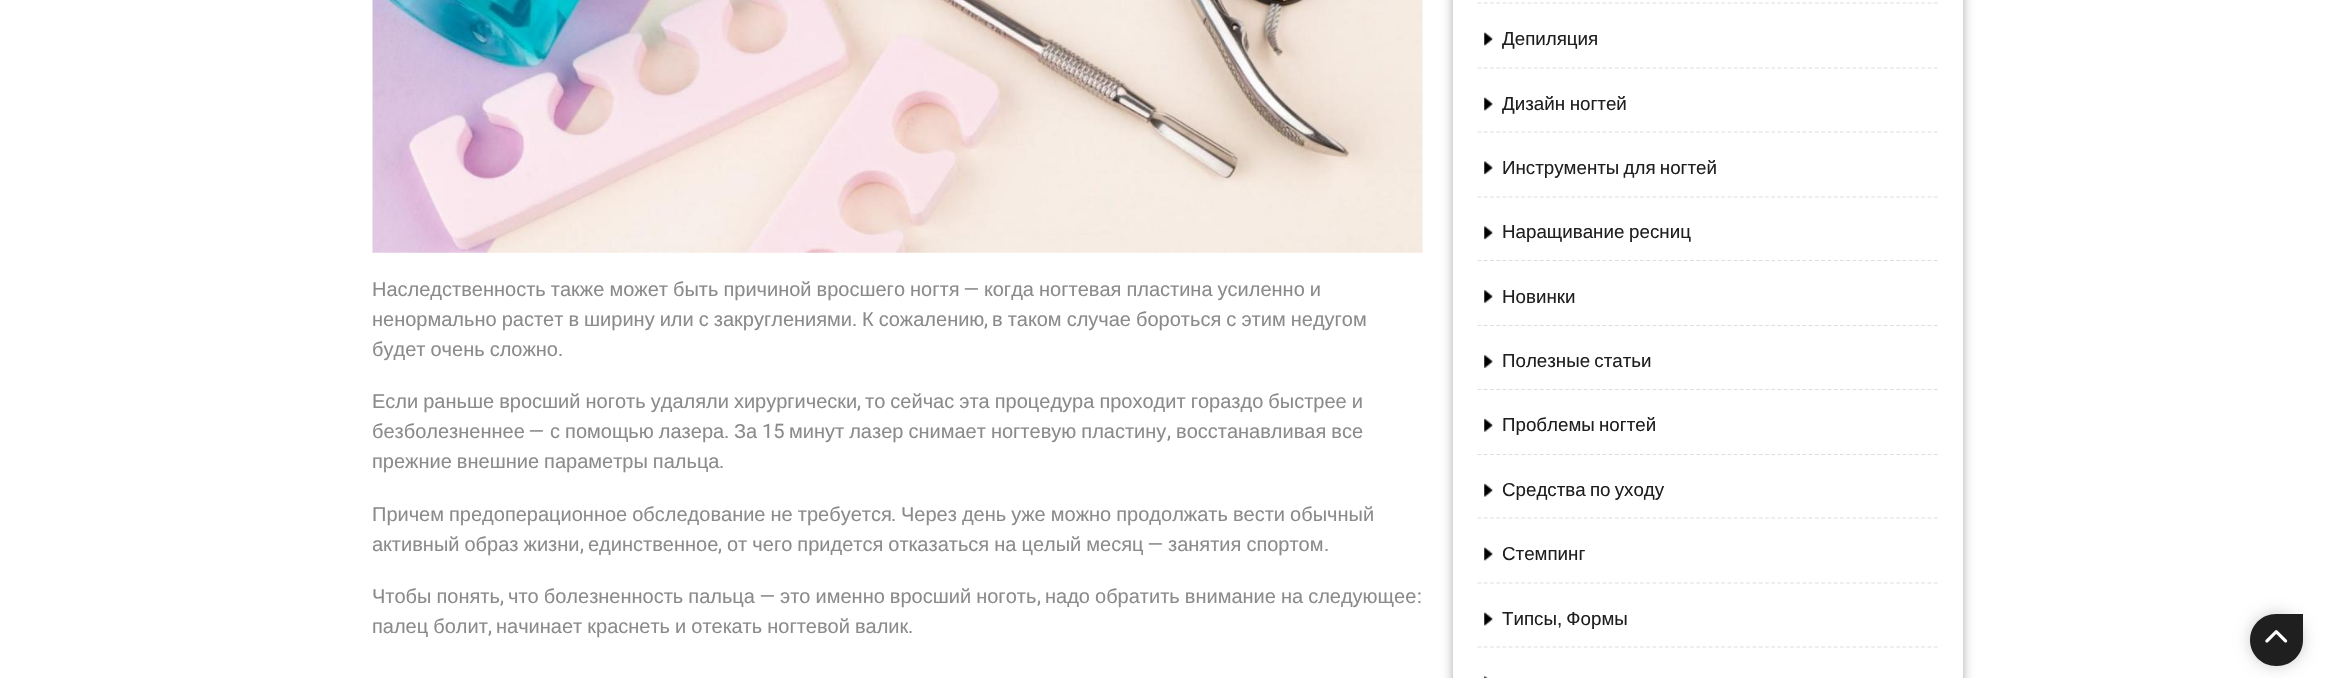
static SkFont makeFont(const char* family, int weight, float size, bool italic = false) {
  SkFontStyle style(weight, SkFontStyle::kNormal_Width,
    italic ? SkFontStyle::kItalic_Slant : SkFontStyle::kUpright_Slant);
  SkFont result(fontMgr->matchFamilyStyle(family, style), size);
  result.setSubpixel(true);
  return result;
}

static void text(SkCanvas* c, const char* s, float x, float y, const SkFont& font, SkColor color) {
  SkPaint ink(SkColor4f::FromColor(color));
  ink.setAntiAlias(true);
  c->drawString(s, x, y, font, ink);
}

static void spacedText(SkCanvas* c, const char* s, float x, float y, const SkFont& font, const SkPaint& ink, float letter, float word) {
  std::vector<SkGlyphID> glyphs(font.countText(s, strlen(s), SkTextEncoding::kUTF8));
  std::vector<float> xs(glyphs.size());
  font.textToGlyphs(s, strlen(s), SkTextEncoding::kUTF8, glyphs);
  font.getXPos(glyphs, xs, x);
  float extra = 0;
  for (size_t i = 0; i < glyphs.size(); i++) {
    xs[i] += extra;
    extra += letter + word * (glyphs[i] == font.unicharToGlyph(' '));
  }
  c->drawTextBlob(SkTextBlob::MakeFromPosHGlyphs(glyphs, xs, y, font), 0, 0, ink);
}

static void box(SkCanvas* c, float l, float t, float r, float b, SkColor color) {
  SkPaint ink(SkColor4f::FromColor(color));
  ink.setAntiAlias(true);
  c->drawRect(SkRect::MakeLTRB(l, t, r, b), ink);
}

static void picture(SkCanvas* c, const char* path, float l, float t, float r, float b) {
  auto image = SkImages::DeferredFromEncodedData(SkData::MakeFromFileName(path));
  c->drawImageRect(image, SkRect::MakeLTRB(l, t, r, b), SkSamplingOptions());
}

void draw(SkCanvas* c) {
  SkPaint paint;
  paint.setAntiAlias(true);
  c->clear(0xffffffff);
  picture(c, "img_01.png", 372, 0, 1423, 253);
  SkFont face1 = makeFont("Liberation Sans", 400, 20);
  paint.setColor(0xff8b8b8b);
  spacedText(c, "Наследственность также может быть причиной вросшего ногтя", 372, 296, face1, paint, 0, -0.5f);
  SkFont face2 = makeFont("Heebo", 400, 20);
  text(c, "—", 964, 296, face2, 0xff8b8b8b);
  spacedText(c, "когда ногтевая пластина усиленно и", 984, 296, face1, paint, 0, -0.5f);
  spacedText(c, "ненормально растет в ширину или с закруглениями", 372, 326, face1, paint, 0, -0.5f);
  text(c, ".", 852, 326, face2, 0xff8b8b8b);
  spacedText(c, "К сожалению", 862, 326, face1, paint, 0, -0.5f);
  text(c, ",", 984, 326, face2, 0xff8b8b8b);
  spacedText(c, "в таком случае бороться с этим недугом", 992, 326, face1, paint, 0, -0.5f);
  spacedText(c, "будет очень сложно", 372, 356, face1, paint, 0, -0.5f);
  text(c, ".", 558, 356, face2, 0xff8b8b8b);
  spacedText(c, "Если раньше вросший ноготь удаляли хирургически", 372, 408, face1, paint, 0, -0.5f);
  text(c, ",", 857, 408, face2, 0xff8b8b8b);
  spacedText(c, "то сейчас эта процедура проходит гораздо быстрее и", 865, 408, face1, paint, 0, -0.5f);
  text(c, "безболезненнее", 372, 438, face1, 0xff8b8b8b);
  text(c, "—", 529, 438, face2, 0xff8b8b8b);
  spacedText(c, "с помощью лазера", 550, 438, face1, paint, 0, -0.5f);
  text(c, "За", 734, 438, face1, 0xff8b8b8b);
  text(c, "15", 762, 438, face2, 0xff8b8b8b);
  spacedText(c, "минут лазер снимает ногтевую пластину", 789, 438, face1, paint, 0, -0.5f);
  spacedText(c, "восстанавливая все", 1176, 438, face1, paint, 0, -0.5f);
  text(c, ".", 724, 438, face2, 0xff8b8b8b);
  text(c, ",", 1167, 438, face2, 0xff8b8b8b);
  spacedText(c, "прежние внешние параметры пальца", 372, 468, face1, paint, 0, -0.5f);
  text(c, ".", 719, 468, face2, 0xff8b8b8b);
  spacedText(c, "Причем предоперационное обследование не требуется", 372, 521, face1, paint, 0, -0.5f);
  text(c, ".", 891, 521, face2, 0xff8b8b8b);
  spacedText(c, "Через день уже можно продолжать вести обычный", 901, 521, face1, paint, 0, -0.5f);
  spacedText(c, "активный образ жизни", 372, 551, face1, paint, 0, -0.5f);
  text(c, "единственное", 588, 551, face1, 0xff8b8b8b);
  spacedText(c, "от чего придется отказаться на целый месяц", 727, 551, face1, paint, 0, -0.5f);
  text(c, "—", 1148, 551, face2, 0xff8b8b8b);
  spacedText(c, "занятия спортом", 1168, 551, face1, paint, 0, -0.5f);
  text(c, ",", 580, 551, face2, 0xff8b8b8b);
  text(c, ",", 718, 551, face2, 0xff8b8b8b);
  text(c, ".", 1324, 551, face2, 0xff8b8b8b);
  spacedText(c, "Чтобы понять", 372, 603, face1, paint, 0, -0.5f);
  spacedText(c, "что болезненность пальца", 508, 603, face1, paint, 0, -0.5f);
  text(c, "—", 760, 603, face2, 0xff8b8b8b);
  spacedText(c, "это именно вросший ноготь", 780, 603, face1, paint, 0, -0.5f);
  spacedText(c, "надо обратить внимание на следующее", 1045, 603, face1, paint, 0, -0.5f);
  text(c, ":", 1417, 603, face2, 0xff8b8b8b);
  text(c, ",", 500, 603, face2, 0xff8b8b8b);
  text(c, ",", 1037, 603, face2, 0xff8b8b8b);
  spacedText(c, "палец болит", 372, 633, face1, paint, 0, -0.5f);
  text(c, ",", 488, 633, face2, 0xff8b8b8b);
  spacedText(c, "начинает краснеть и отекать ногтевой валик", 496, 633, face1, paint, 0, -0.5f);
  text(c, ".", 908, 633, face2, 0xff8b8b8b);
  paint.setColor(0xffa7aaad);
  paint.setMaskFilter(SkMaskFilter::MakeBlur(kNormal_SkBlurStyle, 5.5f));
  c->drawRoundRect(SkRect::MakeLTRB(1453, -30, 1963, 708), 13, 13, paint);
  paint.setMaskFilter(nullptr);
  box(c, 1453, 0, 1963, 678, 0xffffffff);
  paint.setStyle(SkPaint::kStroke_Style);
  paint.setStrokeWidth(1.2f);
  paint.setColor(0xffdddddd);
  paint.setPathEffect(SkDashPathEffect::Make({{3.75f, 2.5f}}, 0));
  c->drawPath(SkPathBuilder().moveTo(1477.5f, 3).lineTo(1937.5f, 3).detach(), paint);
  paint.setPathEffect(nullptr);
  picture(c, "img_02.png", 1484, 32, 1493, 46);
  paint.setPathEffect(SkDashPathEffect::Make({{3.75f, 2.5f}}, 0));
  c->drawPath(SkPathBuilder().moveTo(1477.5f, 68).lineTo(1937.5f, 68).detach(), paint);
  paint.setPathEffect(nullptr);
  SkFont face3 = makeFont("Liberation Sans", 400, 18.75f);
  text(c, "Депиляция", 1502, 45, face3, 0xff1f1f1f);
  picture(c, "img_02.png", 1484, 97, 1493, 111);
  paint.setPathEffect(SkDashPathEffect::Make({{3.75f, 2.5f}}, 0));
  c->drawPath(SkPathBuilder().moveTo(1477.5f, 132).lineTo(1937.5f, 132).detach(), paint);
  paint.setPathEffect(nullptr);
  paint.setStyle(SkPaint::kFill_Style);
  paint.setColor(0xff1f1f1f);
  spacedText(c, "Дизайн ногтей", 1502, 110, face3, paint, 0, -0.5f);
  picture(c, "img_03.png", 1484, 161, 1493, 175);
  paint.setStyle(SkPaint::kStroke_Style);
  paint.setColor(0xffdddddd);
  paint.setPathEffect(SkDashPathEffect::Make({{3.75f, 2.5f}}, 0));
  c->drawPath(SkPathBuilder().moveTo(1477.5f, 197).lineTo(1937.5f, 197).detach(), paint);
  paint.setPathEffect(nullptr);
  paint.setStyle(SkPaint::kFill_Style);
  paint.setColor(0xff1f1f1f);
  spacedText(c, "Инструменты для ногтей", 1502, 174, face3, paint, 0, -1);
  picture(c, "img_03.png", 1484, 226, 1493, 240);
  paint.setStyle(SkPaint::kStroke_Style);
  paint.setColor(0xffdddddd);
  paint.setPathEffect(SkDashPathEffect::Make({{3.75f, 2.5f}}, 0));
  c->drawPath(SkPathBuilder().moveTo(1477.5f, 260.5f).lineTo(1937.5f, 260.5f).detach(), paint);
  paint.setPathEffect(nullptr);
  paint.setStyle(SkPaint::kFill_Style);
  paint.setColor(0xff1f1f1f);
  spacedText(c, "Наращивание ресниц", 1502, 238, face3, paint, 0, -0.5f);
  picture(c, "img_04.png", 1484, 290, 1493, 303);
  paint.setStyle(SkPaint::kStroke_Style);
  paint.setColor(0xffdddddd);
  paint.setPathEffect(SkDashPathEffect::Make({{3.75f, 2.5f}}, 0));
  c->drawPath(SkPathBuilder().moveTo(1477.5f, 325.5f).lineTo(1937.5f, 325.5f).detach(), paint);
  paint.setPathEffect(nullptr);
  text(c, "Новинки", 1502, 303, face3, 0xff1f1f1f);
  picture(c, "img_04.png", 1484, 355, 1493, 368);
  paint.setPathEffect(SkDashPathEffect::Make({{3.75f, 2.5f}}, 0));
  c->drawPath(SkPathBuilder().moveTo(1477.5f, 389.5f).lineTo(1937.5f, 389.5f).detach(), paint);
  paint.setPathEffect(nullptr);
  paint.setStyle(SkPaint::kFill_Style);
  paint.setColor(0xff1f1f1f);
  spacedText(c, "Полезные статьи", 1502, 367, face3, paint, 0, -1);
  picture(c, "img_05.png", 1484, 418, 1493, 432);
  paint.setStyle(SkPaint::kStroke_Style);
  paint.setColor(0xffdddddd);
  paint.setPathEffect(SkDashPathEffect::Make({{3.75f, 2.5f}}, 0));
  c->drawPath(SkPathBuilder().moveTo(1477.5f, 454.5f).lineTo(1937.5f, 454.5f).detach(), paint);
  paint.setPathEffect(nullptr);
  paint.setStyle(SkPaint::kFill_Style);
  paint.setColor(0xff1f1f1f);
  spacedText(c, "Проблемы ногтей", 1502, 431, face3, paint, 0, -1);
  picture(c, "img_06.png", 1484, 483, 1493, 497);
  paint.setStyle(SkPaint::kStroke_Style);
  paint.setColor(0xffdddddd);
  paint.setPathEffect(SkDashPathEffect::Make({{3.75f, 2.5f}}, 0));
  c->drawPath(SkPathBuilder().moveTo(1477.5f, 518).lineTo(1937.5f, 518).detach(), paint);
  paint.setPathEffect(nullptr);
  paint.setStyle(SkPaint::kFill_Style);
  paint.setColor(0xff1f1f1f);
  spacedText(c, "Средства по уходу", 1502, 496, face3, paint, 0, -1);
  picture(c, "img_02.png", 1484, 547, 1493, 561);
  paint.setStyle(SkPaint::kStroke_Style);
  paint.setColor(0xffdddddd);
  paint.setPathEffect(SkDashPathEffect::Make({{3.75f, 2.5f}}, 0));
  c->drawPath(SkPathBuilder().moveTo(1477.5f, 583).lineTo(1937.5f, 583).detach(), paint);
  paint.setPathEffect(nullptr);
  text(c, "Стемпинг", 1502, 560, face3, 0xff1f1f1f);
  picture(c, "img_07.png", 1484, 612, 1493, 626);
  paint.setPathEffect(SkDashPathEffect::Make({{3.75f, 2.5f}}, 0));
  c->drawPath(SkPathBuilder().moveTo(1477.5f, 647).lineTo(1937.5f, 647).detach(), paint);
  paint.setPathEffect(nullptr);
  paint.setStyle(SkPaint::kFill_Style);
  paint.setColor(0xff1f1f1f);
  spacedText(c, "Типсы, Формы", 1502, 625, face3, paint, 0, -1);
  picture(c, "img_08.png", 1484, 676, 1489, 678);
  paint.setColor(0x33000000);
  paint.setMaskFilter(SkMaskFilter::MakeBlur(kNormal_SkBlurStyle, 7.5f));
  c->drawRoundRect(SkRect::MakeLTRB(2250, 614, 2303, 666), 26, 26, paint);
  paint.setMaskFilter(nullptr);
  paint.setColor(0xff1f1f1f);
  c->drawPath(SkPathBuilder().moveTo(2276, 614).lineTo(2303, 614).lineTo(2303, 640).cubicTo(2303, 654.5f, 2291.5f, 666, 2277, 666).lineTo(2276, 666).cubicTo(2261.5f, 666, 2250, 654.5f, 2250, 640).cubicTo(2250, 625.5f, 2261.5f, 614, 2276, 614).close().detach(), paint);
  picture(c, "img_09.png", 2265, 630, 2288, 643);
}
